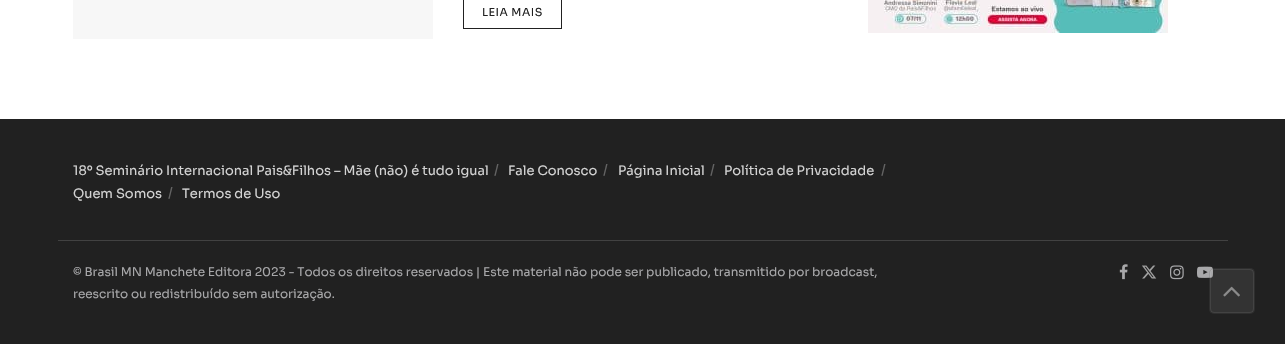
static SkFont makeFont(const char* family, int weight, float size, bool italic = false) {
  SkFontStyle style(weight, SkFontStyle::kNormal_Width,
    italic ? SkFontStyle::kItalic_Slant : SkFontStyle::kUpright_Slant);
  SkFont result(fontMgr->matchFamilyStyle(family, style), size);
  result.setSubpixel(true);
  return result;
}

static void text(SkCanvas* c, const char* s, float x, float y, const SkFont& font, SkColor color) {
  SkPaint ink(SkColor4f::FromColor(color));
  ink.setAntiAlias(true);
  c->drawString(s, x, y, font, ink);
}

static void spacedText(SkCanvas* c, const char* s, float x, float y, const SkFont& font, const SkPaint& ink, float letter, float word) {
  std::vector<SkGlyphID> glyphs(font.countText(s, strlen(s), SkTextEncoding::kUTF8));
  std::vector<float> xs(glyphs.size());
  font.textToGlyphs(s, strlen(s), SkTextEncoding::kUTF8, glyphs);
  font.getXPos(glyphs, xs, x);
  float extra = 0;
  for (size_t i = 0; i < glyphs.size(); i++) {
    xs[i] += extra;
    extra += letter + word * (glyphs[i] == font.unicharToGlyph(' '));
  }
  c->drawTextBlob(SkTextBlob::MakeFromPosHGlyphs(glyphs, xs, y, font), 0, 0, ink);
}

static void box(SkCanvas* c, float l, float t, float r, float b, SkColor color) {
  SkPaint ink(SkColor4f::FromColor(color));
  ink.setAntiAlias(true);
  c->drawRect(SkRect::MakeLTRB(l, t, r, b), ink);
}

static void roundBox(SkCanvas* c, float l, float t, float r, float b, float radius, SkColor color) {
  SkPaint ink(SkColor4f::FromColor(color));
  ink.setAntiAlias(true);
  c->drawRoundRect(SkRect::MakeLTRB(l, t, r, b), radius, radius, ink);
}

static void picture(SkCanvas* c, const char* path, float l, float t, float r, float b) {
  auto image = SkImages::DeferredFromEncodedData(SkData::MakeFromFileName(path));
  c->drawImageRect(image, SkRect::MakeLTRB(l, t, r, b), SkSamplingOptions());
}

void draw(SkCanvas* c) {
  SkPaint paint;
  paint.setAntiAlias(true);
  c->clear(0xffffffff);
  box(c, 73, 0, 433, 39, 0xfff7f7f7);
  paint.setStyle(SkPaint::kStroke_Style);
  paint.setStrokeWidth(1);
  paint.setColor(0xff212121);
  c->drawRect(SkRect::MakeLTRB(463.5f, -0.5f, 561.5f, 28.5f), paint);
  SkFont face1 = makeFont("Sora", 400, 11);
  paint.setStyle(SkPaint::kFill_Style);
  spacedText(c, "LEIA MAIS", 482, 16, face1, paint, 0.5f, 0);
  picture(c, "img_01.png", 868, 0, 1168, 33);
  box(c, 0, 119, 1285, 344, 0xff212121);
  SkFont face2 = makeFont("Sora", 400, 13);
  text(c, "18º Seminário Internacional Pais&Filhos – Mãe (não) é tudo igual", 73, 175, face2, 0xffd3d3d3);
  SkFont face3 = makeFont("Sora", 400, 14);
  text(c, "/", 494, 175, face3, 0xff646464);
  text(c, "Fale Conosco", 508, 175, face2, 0xffd3d3d3);
  text(c, "/", 603, 175, face3, 0xff646464);
  text(c, "Página Inicial", 618, 175, face2, 0xffd3d3d3);
  text(c, "/", 710, 175, face3, 0xff646464);
  text(c, "Política de Privacidade", 724, 175, face2, 0xffd3d3d3);
  text(c, "/", 881, 175, face3, 0xff646464);
  text(c, "Quem Somos", 73, 198, face2, 0xffd3d3d3);
  text(c, "/", 168, 198, face3, 0xff646464);
  text(c, "Termos de Uso", 182, 198, face2, 0xffd3d3d3);
  box(c, 58, 240, 1228, 241, 0xff424242);
  SkFont face4 = makeFont("Sora", 400, 12);
  text(c, "© Brasil MN Manchete Editora 2023 - Todos os direitos reservados | Este material não pode ser publicado, transmitido por broadcast,", 73, 276, face4, 0xffa8a8aa);
  text(c, "reescrito ou redistribuído sem autorização.", 73, 298, face4, 0xffa8a8aa);
  picture(c, "img_02.png", 1119, 264, 1128, 280);
  picture(c, "img_03.png", 1142, 265, 1157, 279);
  picture(c, "img_04.png", 1170, 265, 1184, 280);
  picture(c, "img_05.png", 1197, 266, 1213, 278);
  roundBox(c, 1209, 268, 1255, 314, 5, 0x1fb5b5b5);
  paint.setStyle(SkPaint::kStroke_Style);
  paint.setColor(0x14ffffff);
  c->drawRoundRect(SkRect::MakeLTRB(1210.5f, 269.5f, 1253.5f, 312.5f), 3.5f, 3.5f, paint);
  paint.setColor(0x17000000);
  c->drawRoundRect(SkRect::MakeLTRB(1209.5f, 268.5f, 1254.5f, 313.5f), 4.5f, 4.5f, paint);
  picture(c, "img_06.png", 1223, 286, 1240, 297);
}
